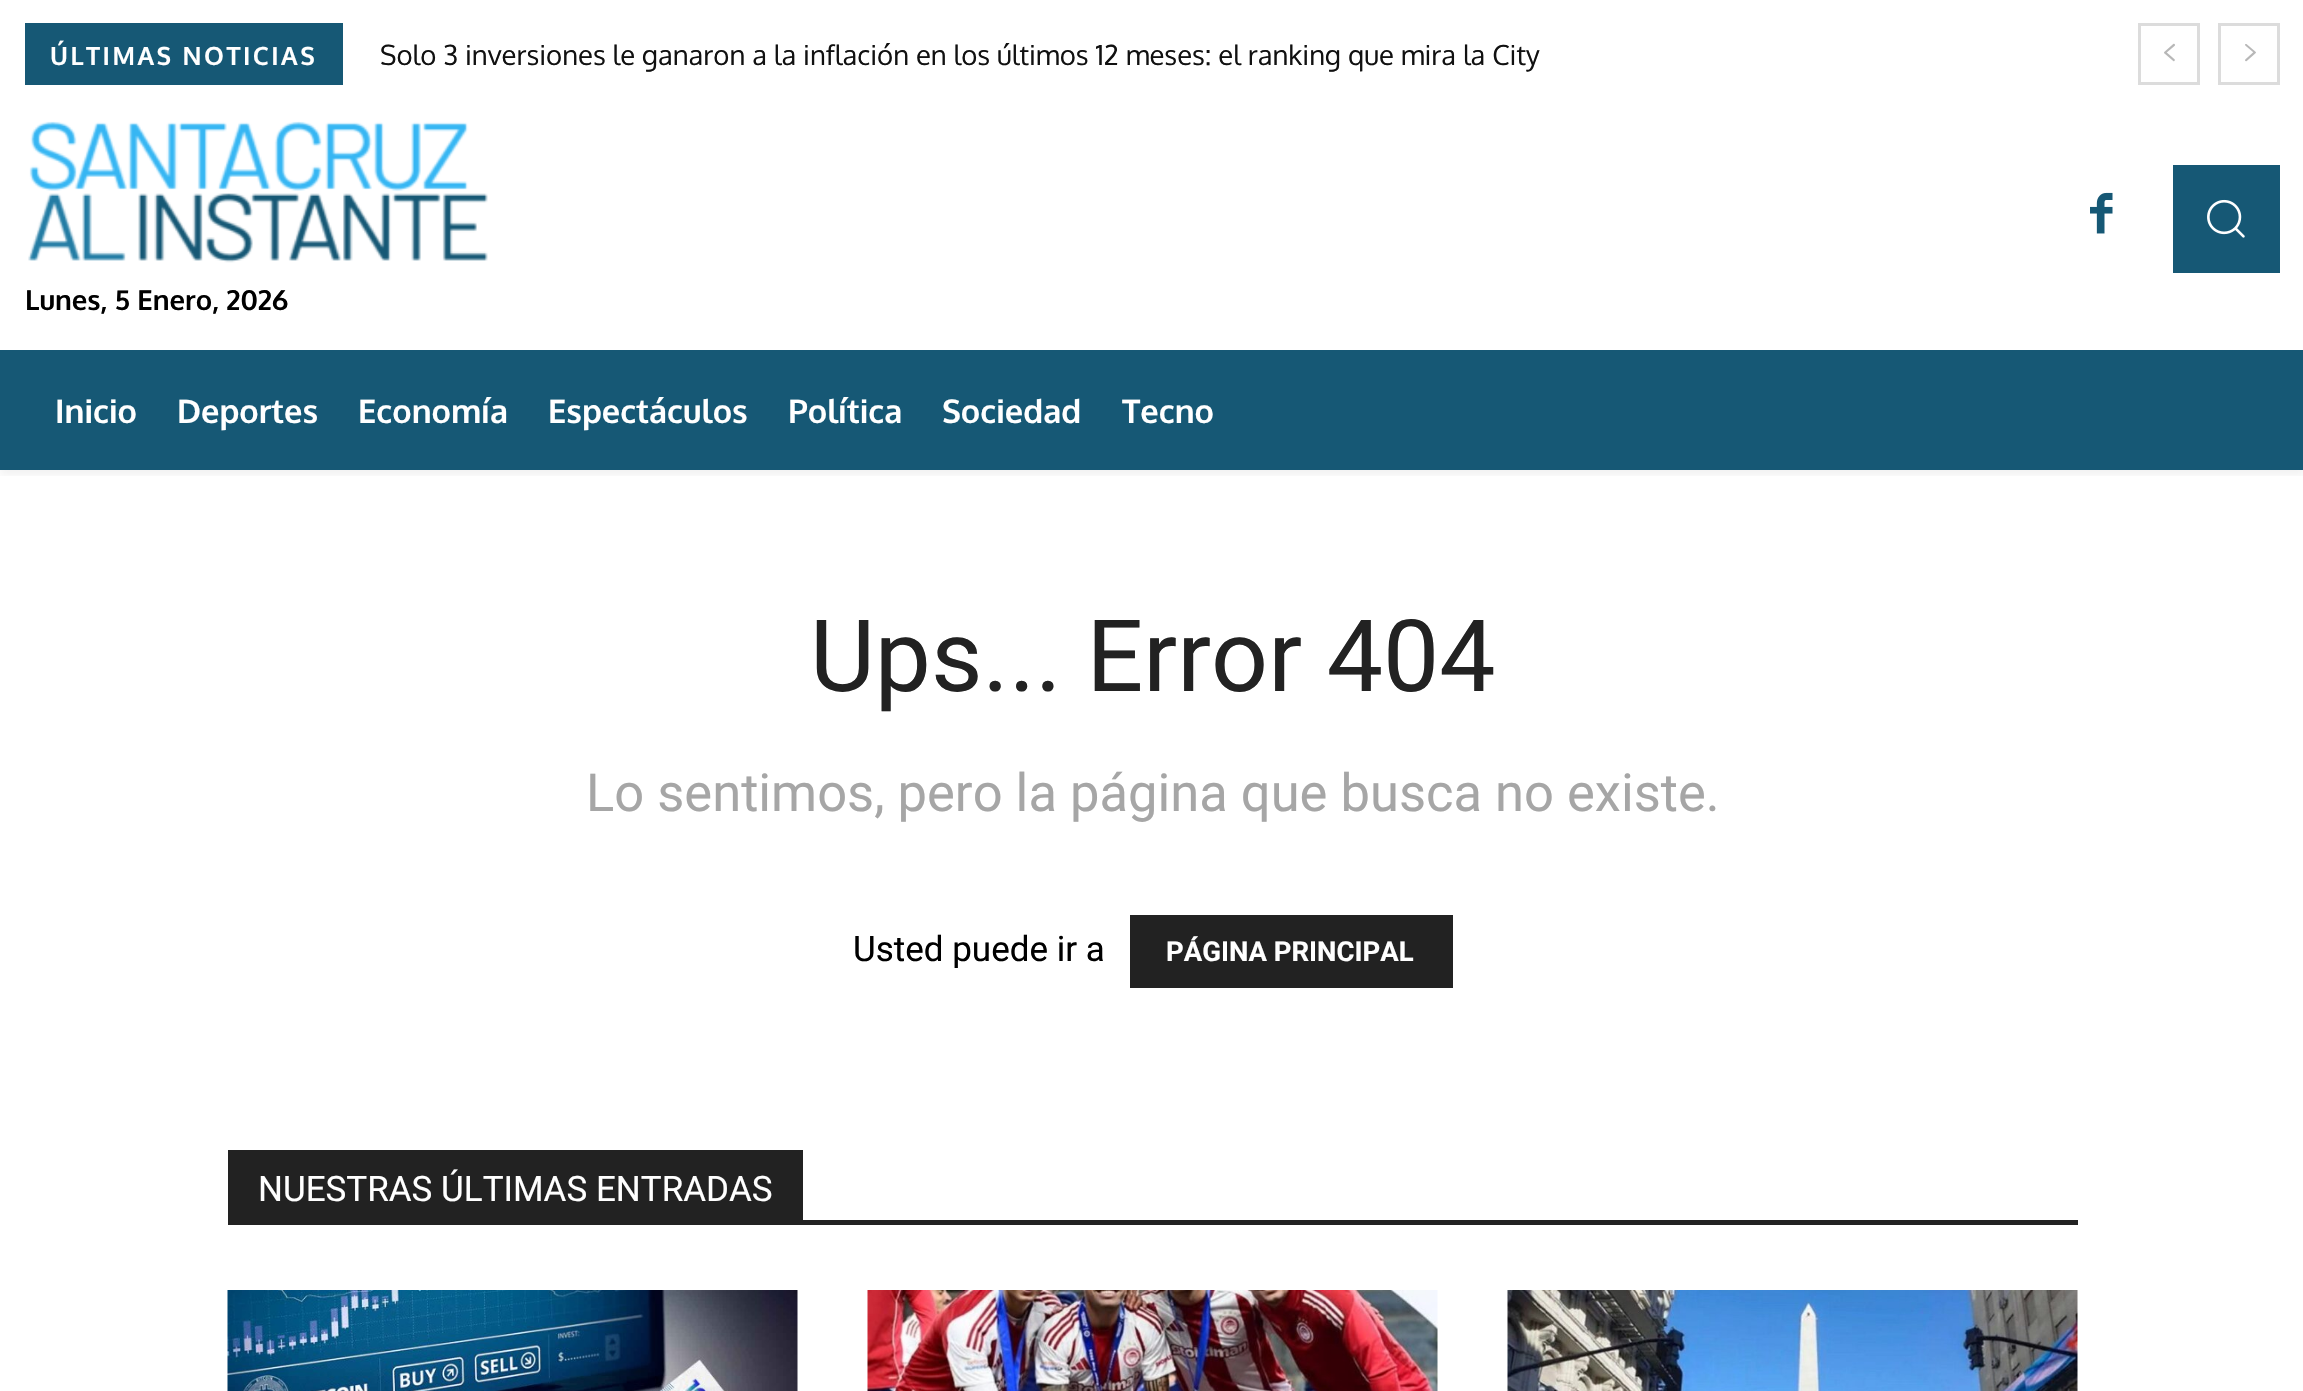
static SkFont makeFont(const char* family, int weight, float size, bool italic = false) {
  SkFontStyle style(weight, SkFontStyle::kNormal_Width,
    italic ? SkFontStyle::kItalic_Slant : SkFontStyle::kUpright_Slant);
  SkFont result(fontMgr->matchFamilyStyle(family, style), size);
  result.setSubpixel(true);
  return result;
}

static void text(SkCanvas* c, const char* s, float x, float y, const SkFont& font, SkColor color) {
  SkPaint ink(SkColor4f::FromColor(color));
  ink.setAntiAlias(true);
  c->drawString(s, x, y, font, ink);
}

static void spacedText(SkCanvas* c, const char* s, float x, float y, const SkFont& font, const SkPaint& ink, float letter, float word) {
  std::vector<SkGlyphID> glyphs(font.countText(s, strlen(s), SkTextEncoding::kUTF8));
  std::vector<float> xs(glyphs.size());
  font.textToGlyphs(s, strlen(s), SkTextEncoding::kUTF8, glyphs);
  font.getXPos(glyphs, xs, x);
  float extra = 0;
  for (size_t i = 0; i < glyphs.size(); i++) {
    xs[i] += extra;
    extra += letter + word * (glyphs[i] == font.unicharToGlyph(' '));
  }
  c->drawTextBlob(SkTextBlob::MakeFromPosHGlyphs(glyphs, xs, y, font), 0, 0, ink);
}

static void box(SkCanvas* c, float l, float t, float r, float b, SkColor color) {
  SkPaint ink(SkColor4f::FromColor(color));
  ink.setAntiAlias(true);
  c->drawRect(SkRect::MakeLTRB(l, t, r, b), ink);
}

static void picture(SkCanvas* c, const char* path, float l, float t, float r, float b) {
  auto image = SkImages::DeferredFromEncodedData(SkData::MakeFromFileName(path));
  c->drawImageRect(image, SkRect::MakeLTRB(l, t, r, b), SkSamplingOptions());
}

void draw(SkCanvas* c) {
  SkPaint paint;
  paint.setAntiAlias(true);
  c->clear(0xffffffff);
  box(c, 25, 23, 343, 85, 0xff165875);
  SkFont face1 = makeFont("Oxygen", 700, 25);
  paint.setColor(0xffffffff);
  spacedText(c, "ÚLTIMAS NOTICIAS", 50, 65, face1, paint, 2.5f, 0);
  SkFont face2 = makeFont("Oxygen", 400, 27.5f);
  text(c, "Solo 3 inversiones le ganaron a la inflación en los últimos 12 meses: el ranking que mira la City", 380, 65, face2, 0xff111111);
  paint.setStyle(SkPaint::kStroke_Style);
  paint.setStrokeWidth(3);
  paint.setColor(0xffdcdcdc);
  c->drawRect(SkRect::MakeLTRB(2139.5f, 24.5f, 2198.5f, 83.5f), paint);
  picture(c, "img_01.png", 2164, 43, 2175, 62);
  c->drawRect(SkRect::MakeLTRB(2219.5f, 24.5f, 2278.5f, 83.5f), paint);
  picture(c, "img_02.png", 2245, 44, 2256, 62);
  picture(c, "img_03.png", 2090, 192, 2113, 234);
  box(c, 2173, 165, 2280, 273, 0xff165875);
  picture(c, "img_04.png", 2207, 199, 2245, 238);
  picture(c, "img_05.png", 28, 121, 488, 263);
  SkFont face3 = makeFont("Oxygen", 700, 27.5f);
  text(c, "Lunes, 5 Enero, 2026", 25, 310, face3, 0xff000000);
  box(c, 0, 350, 2303, 470, 0xff165875);
  c->save();
  c->clipRect(SkRect::MakeLTRB(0, 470, 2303, 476));
  paint.setStyle(SkPaint::kFill_Style);
  paint.setColor(0x0d000000);
  paint.setMaskFilter(SkMaskFilter::MakeBlur(kNormal_SkBlurStyle, 4));
  c->drawRect(SkRect::MakeLTRB(0, 355, 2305, 475), paint);
  paint.setMaskFilter(nullptr);
  c->restore();
  SkFont face4 = makeFont("Oxygen", 700, 32.5f);
  text(c, "Inicio", 55, 423, face4, 0xffffffff);
  text(c, "Deportes", 177, 423, face4, 0xffffffff);
  text(c, "Economía", 358, 423, face4, 0xffffffff);
  text(c, "Espectáculos", 548, 423, face4, 0xffffffff);
  text(c, "Política", 788, 423, face4, 0xffffffff);
  text(c, "Sociedad", 942, 423, face4, 0xffffffff);
  text(c, "Tecno", 1122, 423, face4, 0xffffffff);
  SkFont face5 = makeFont("Roboto", 400, 100);
  text(c, "Ups... Error 404", 810, 691, face5, 0xff222222);
  SkFont face6 = makeFont("Roboto", 400, 52.5f);
  text(c, "Lo sentimos, pero la página que busca no existe.", 586, 811, face6, 0xffa6a6a6);
  SkFont face7 = makeFont("Roboto", 400, 35);
  text(c, "Usted puede ir a", 853, 961, face7, 0xff000000);
  box(c, 1130, 915, 1453, 988, 0xff222222);
  SkFont face8 = makeFont("Roboto", 700, 27.5f);
  text(c, "PÁGINA PRINCIPAL", 1166, 961, face8, 0xffffffff);
  box(c, 228, 1220, 2078, 1225, 0xff222222);
  box(c, 228, 1150, 803, 1220, 0xff222222);
  text(c, "NUESTRAS ÚLTIMAS ENTRADAS", 258, 1201, face7, 0xffffffff);
  picture(c, "img_06.png", 227, 1290, 798, 1391);
  picture(c, "img_07.png", 867, 1290, 1438, 1391);
  picture(c, "img_08.png", 1507, 1290, 2078, 1391);
}
